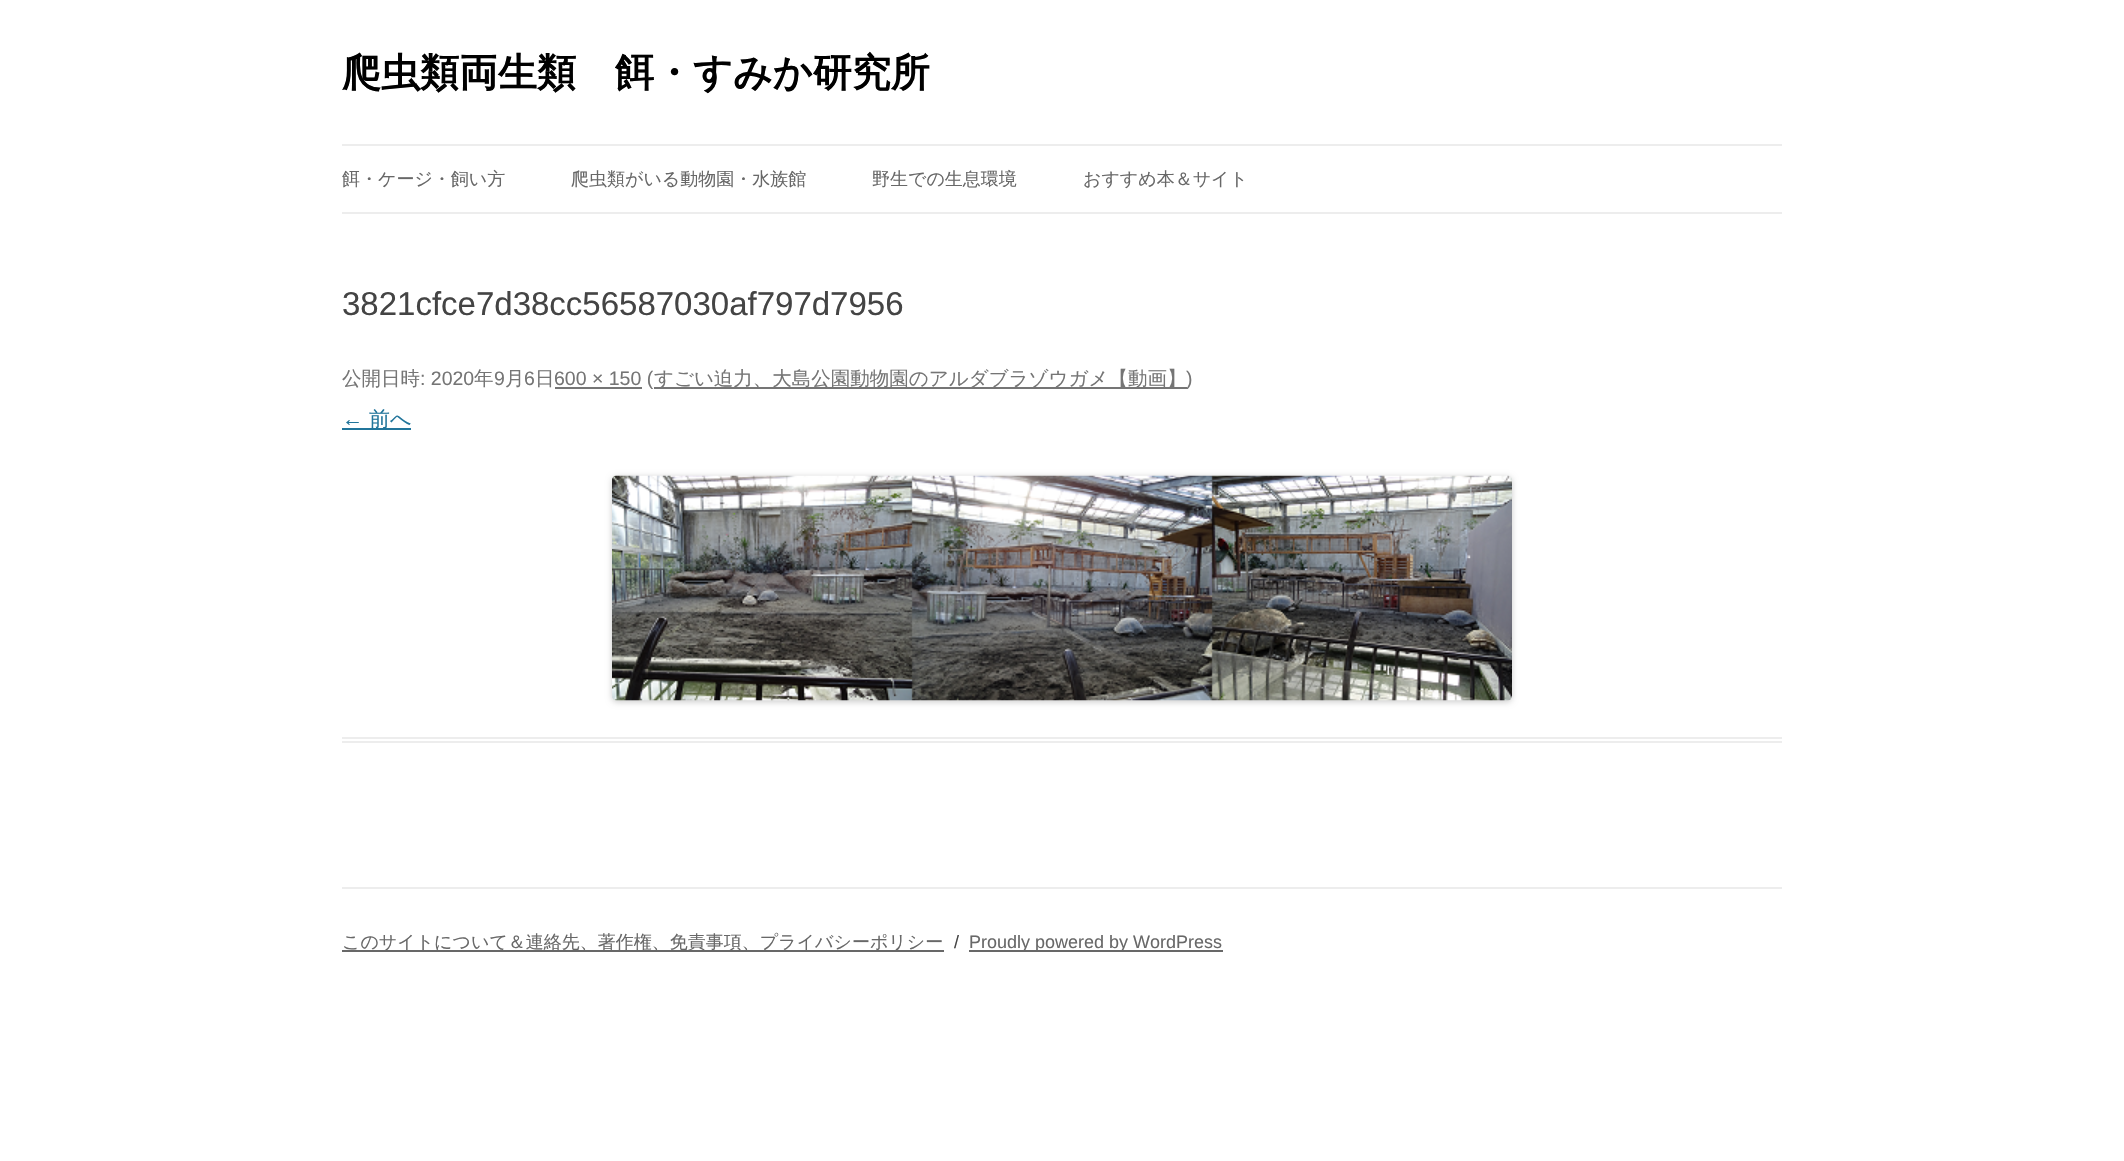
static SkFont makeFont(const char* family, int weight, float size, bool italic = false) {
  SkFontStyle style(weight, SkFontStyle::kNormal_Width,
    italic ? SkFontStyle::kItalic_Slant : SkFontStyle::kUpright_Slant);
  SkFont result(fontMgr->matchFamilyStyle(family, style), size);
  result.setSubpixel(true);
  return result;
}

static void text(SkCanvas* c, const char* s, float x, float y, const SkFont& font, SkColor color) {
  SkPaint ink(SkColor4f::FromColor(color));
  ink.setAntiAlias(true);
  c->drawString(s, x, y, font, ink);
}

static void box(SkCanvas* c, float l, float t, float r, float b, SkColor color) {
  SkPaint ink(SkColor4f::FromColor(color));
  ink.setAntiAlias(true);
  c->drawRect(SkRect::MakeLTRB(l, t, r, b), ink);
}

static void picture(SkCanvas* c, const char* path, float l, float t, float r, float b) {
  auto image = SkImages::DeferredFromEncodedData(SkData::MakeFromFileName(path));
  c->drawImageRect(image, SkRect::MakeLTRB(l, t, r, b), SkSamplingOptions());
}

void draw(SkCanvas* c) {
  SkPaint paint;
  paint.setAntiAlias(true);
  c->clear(0xffffffff);
  SkFont face1 = makeFont("WenQuanYi Zen Hei", 700, 39);
  text(c, "爬虫類両生類　餌・すみか研究所", 342, 86, face1, 0xff000000);
  box(c, 342, 144, 1782, 146, 0xffededed);
  box(c, 342, 212, 1782, 214, 0xffededed);
  SkFont face2 = makeFont("WenQuanYi Zen Hei", 500, 18);
  text(c, "餌・ケージ・飼い方", 342, 185, face2, 0xff686868);
  text(c, "爬虫類がいる動物園・水族館", 571, 185, face2, 0xff686868);
  text(c, "野生での生息環境", 872, 185, face2, 0xff686868);
  text(c, "おすすめ本＆サイト", 1083, 185, face2, 0xff686868);
  box(c, 342, 737, 1782, 739, 0xffededed);
  box(c, 342, 741, 1782, 743, 0xffededed);
  SkFont face3 = makeFont("Liberation Sans", 400, 33);
  text(c, "3821cfce7d38cc56587030af797d7956", 342, 315, face3, 0xff444444);
  SkFont face4 = makeFont("WenQuanYi Zen Hei", 500, 19.5f);
  text(c, "公開日時", 342, 385, face4, 0xff757575);
  SkFont face5 = makeFont("Liberation Sans", 400, 19.5f);
  text(c, ": 2020", 420, 385, face5, 0xff757575);
  text(c, "年", 474, 385, face4, 0xff757575);
  text(c, "9", 494, 385, face5, 0xff757575);
  text(c, "月", 505, 385, face4, 0xff757575);
  text(c, "6", 524, 385, face5, 0xff757575);
  text(c, "日", 535, 385, face4, 0xff757575);
  box(c, 555, 387, 642, 389, 0xff757575);
  text(c, "600 × 150 (", 554, 385, face5, 0xff757575);
  box(c, 654, 387, 1187, 389, 0xff757575);
  text(c, "すごい迫力、大島公園動物園のアルダブラゾウガメ【動画】", 654, 385, face4, 0xff757575);
  text(c, ")", 1186, 385, face5, 0xff757575);
  SkFont face6 = makeFont("Liberation Sans", 400, 21);
  text(c, "←", 342, 426, face6, 0xff21759b);
  box(c, 342, 428, 411, 430, 0xff21759b);
  SkFont face7 = makeFont("WenQuanYi Zen Hei", 500, 21);
  text(c, "前へ", 369, 426, face7, 0xff21759b);
  paint.setColor(0x33000000);
  paint.setMaskFilter(SkMaskFilter::MakeBlur(kNormal_SkBlurStyle, 3));
  c->drawRoundRect(SkRect::MakeLTRB(612, 477, 1512, 702), 5, 5, paint);
  paint.setMaskFilter(nullptr);
  picture(c, "img_01.png", 612, 475, 1512, 701);
  box(c, 342, 887, 1782, 889, 0xffededed);
  box(c, 342, 950, 944, 952, 0xff686868);
  text(c, "このサイトについて＆連絡先、著作権、免責事項、プライバシーポリシー", 342, 948, face2, 0xff686868);
  SkFont face8 = makeFont("Liberation Sans", 400, 18);
  text(c, "/", 954, 948, face8, 0xff444444);
  box(c, 969, 950, 1223, 952, 0xff686868);
  text(c, "Proudly powered by WordPress", 969, 948, face8, 0xff686868);
}
